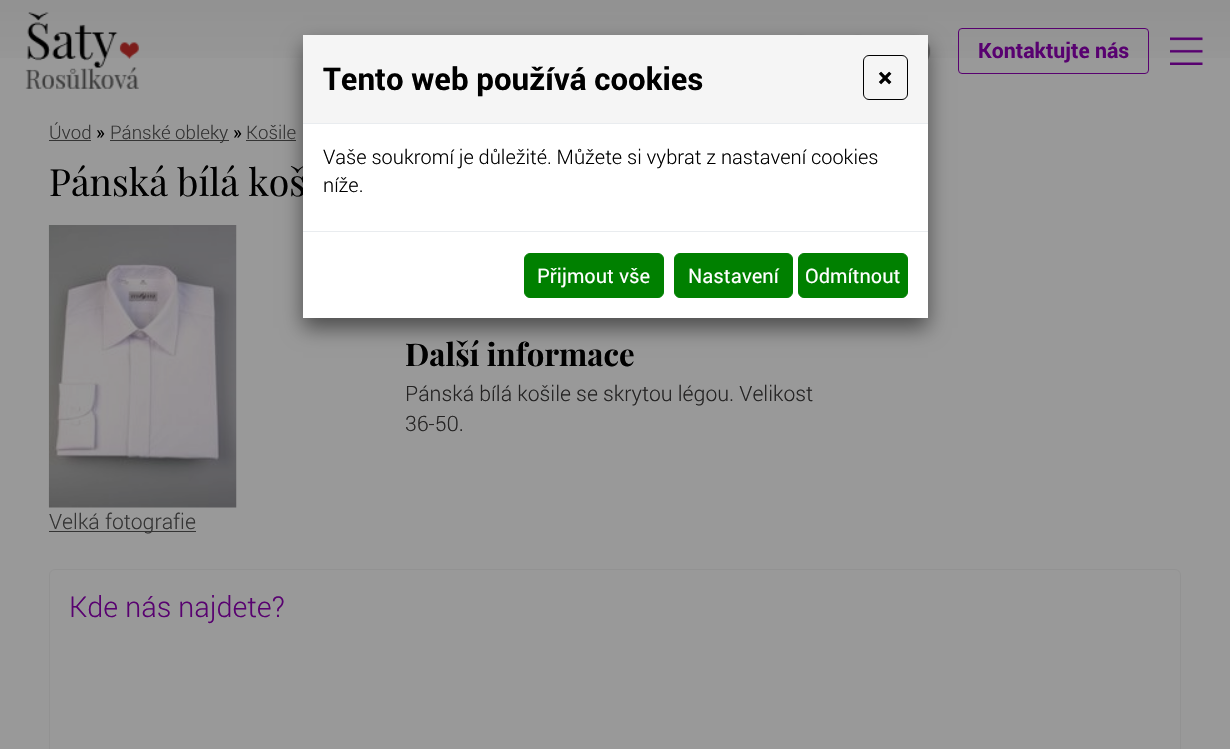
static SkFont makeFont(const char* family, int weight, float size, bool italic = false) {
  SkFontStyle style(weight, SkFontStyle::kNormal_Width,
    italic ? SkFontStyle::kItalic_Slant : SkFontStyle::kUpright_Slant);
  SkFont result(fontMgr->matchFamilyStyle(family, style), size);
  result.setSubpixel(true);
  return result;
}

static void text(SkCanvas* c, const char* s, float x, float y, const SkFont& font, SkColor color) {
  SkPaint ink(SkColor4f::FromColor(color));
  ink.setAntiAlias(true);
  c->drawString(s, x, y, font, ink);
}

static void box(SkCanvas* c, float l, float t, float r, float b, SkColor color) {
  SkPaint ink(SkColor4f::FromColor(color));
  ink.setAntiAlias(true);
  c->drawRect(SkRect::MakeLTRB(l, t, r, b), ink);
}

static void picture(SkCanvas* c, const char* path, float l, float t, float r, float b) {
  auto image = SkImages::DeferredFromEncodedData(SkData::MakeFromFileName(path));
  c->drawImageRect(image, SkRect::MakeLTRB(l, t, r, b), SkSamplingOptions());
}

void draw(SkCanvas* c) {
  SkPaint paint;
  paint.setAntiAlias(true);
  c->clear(0xff999999);
  picture(c, "img_01.png", 0, 0, 1230, 58);
  picture(c, "img_02.png", 25, 12, 139, 89);
  picture(c, "img_03.png", 797, 34, 806, 35);
  picture(c, "img_04.png", 853, 34, 862, 35);
  picture(c, "img_05.png", 909, 34, 931, 61);
  paint.setStyle(SkPaint::kStroke_Style);
  paint.setStrokeWidth(1);
  paint.setColor(0xff580170);
  c->drawRoundRect(SkRect::MakeLTRB(958.5f, 28.5f, 1148.5f, 73.5f), 3.5f, 3.5f, paint);
  SkFont face1 = makeFont("Roboto", 700, 21.25f);
  text(c, "Kontaktujte nás", 978, 58, face1, 0xff580170);
  picture(c, "img_06.png", 1170, 37, 1203, 65);
  box(c, 246, 140, 296, 141, 0xff343434);
  paint.setStyle(SkPaint::kFill_Style);
  paint.setColor(0x80000000);
  paint.setMaskFilter(SkMaskFilter::MakeBlur(kNormal_SkBlurStyle, 10));
  c->drawRect(SkRect::MakeLTRB(303, 45, 928, 328), paint);
  paint.setMaskFilter(nullptr);
  SkFont face2 = makeFont("Playfair Display", 400, 37.5f);
  text(c, "Pánská bílá koš", 49, 196, face2, 0xff000000);
  box(c, 303, 124, 928, 318, 0xffffffff);
  box(c, 303, 35, 928, 123, 0xfff5f5f5);
  box(c, 303, 123, 928, 124, 0xffe9ecef);
  SkFont face3 = makeFont("Roboto", 700, 31.25f);
  text(c, "Tento web používá cookies", 323, 90, face3, 0xff000000);
  paint.setStyle(SkPaint::kStroke_Style);
  paint.setColor(0xff000000);
  c->drawRoundRect(SkRect::MakeLTRB(863.5f, 55.5f, 907.5f, 99.5f), 5.5f, 5.5f, paint);
  SkFont face4 = makeFont("Roboto", 700, 27);
  text(c, "×", 878, 87, face4, 0xff000000);
  SkFont face5 = makeFont("Roboto", 300, 20);
  text(c, "Vaše soukromí je důležité. Můžete si vybrat z nastavení cookies", 323, 164, face5, 0xff000000);
  text(c, "níže.", 323, 192, face5, 0xff000000);
  box(c, 303, 231, 928, 232, 0xffe9ecef);
  paint.setStyle(SkPaint::kFill_Style);
  paint.setColor(0xff008000);
  c->drawRoundRect(SkRect::MakeLTRB(524.5f, 253.5f, 663.5f, 297.5f), 5.5f, 5.5f, paint);
  paint.setStyle(SkPaint::kStroke_Style);
  c->drawRoundRect(SkRect::MakeLTRB(524.5f, 253.5f, 663.5f, 297.5f), 5.5f, 5.5f, paint);
  SkFont face6 = makeFont("Roboto", 400, 20);
  text(c, "Přijmout vše", 537, 283, face6, 0xffffffff);
  paint.setStyle(SkPaint::kFill_Style);
  c->drawRoundRect(SkRect::MakeLTRB(674.5f, 253.5f, 792.5f, 297.5f), 5.5f, 5.5f, paint);
  paint.setStyle(SkPaint::kStroke_Style);
  c->drawRoundRect(SkRect::MakeLTRB(674.5f, 253.5f, 792.5f, 297.5f), 5.5f, 5.5f, paint);
  text(c, "Nastavení", 688, 283, face6, 0xffffffff);
  paint.setStyle(SkPaint::kFill_Style);
  c->drawRoundRect(SkRect::MakeLTRB(798.5f, 253.5f, 907.5f, 297.5f), 5.5f, 5.5f, paint);
  paint.setStyle(SkPaint::kStroke_Style);
  c->drawRoundRect(SkRect::MakeLTRB(798.5f, 253.5f, 907.5f, 297.5f), 5.5f, 5.5f, paint);
  text(c, "Odmítnout", 805, 283, face6, 0xffffffff);
  SkFont face7 = makeFont("Roboto", 300, 18.75f);
  text(c, "Úvod", 49, 139, face7, 0xff343434);
  box(c, 49, 140, 91, 141, 0xff343434);
  SkFont face8 = makeFont("Roboto", 400, 18.75f);
  text(c, "»", 96, 139, face8, 0xff000000);
  box(c, 110, 140, 229, 141, 0xff343434);
  text(c, "Pánské obleky", 110, 139, face7, 0xff343434);
  text(c, "»", 233, 139, face8, 0xff000000);
  text(c, "Košile", 246, 139, face7, 0xff343434);
  SkFont face9 = makeFont("Playfair Display", 700, 31.25f);
  text(c, "Další informace", 405, 366, face9, 0xff000000);
  SkFont face10 = makeFont("Roboto", 300, 21.25f);
  text(c, "Pánská bílá košile se skrytou légou. Velikost", 405, 401, face10, 0xff242323);
  text(c, "36-50.", 405, 431, face10, 0xff242323);
  picture(c, "img_07.png", 48, 225, 237, 508);
  box(c, 49, 531, 196, 532, 0xff343434);
  text(c, "Velká fotografie", 49, 529, face10, 0xff343434);
  paint.setColor(0xff929292);
  c->drawRoundRect(SkRect::MakeLTRB(49.5f, 569.5f, 1180.5f, 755.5f), 5.5f, 5.5f, paint);
  SkFont face11 = makeFont("Roboto", 300, 28.75f);
  text(c, "Kde nás najdete?", 69, 617, face11, 0xff580170);
}
